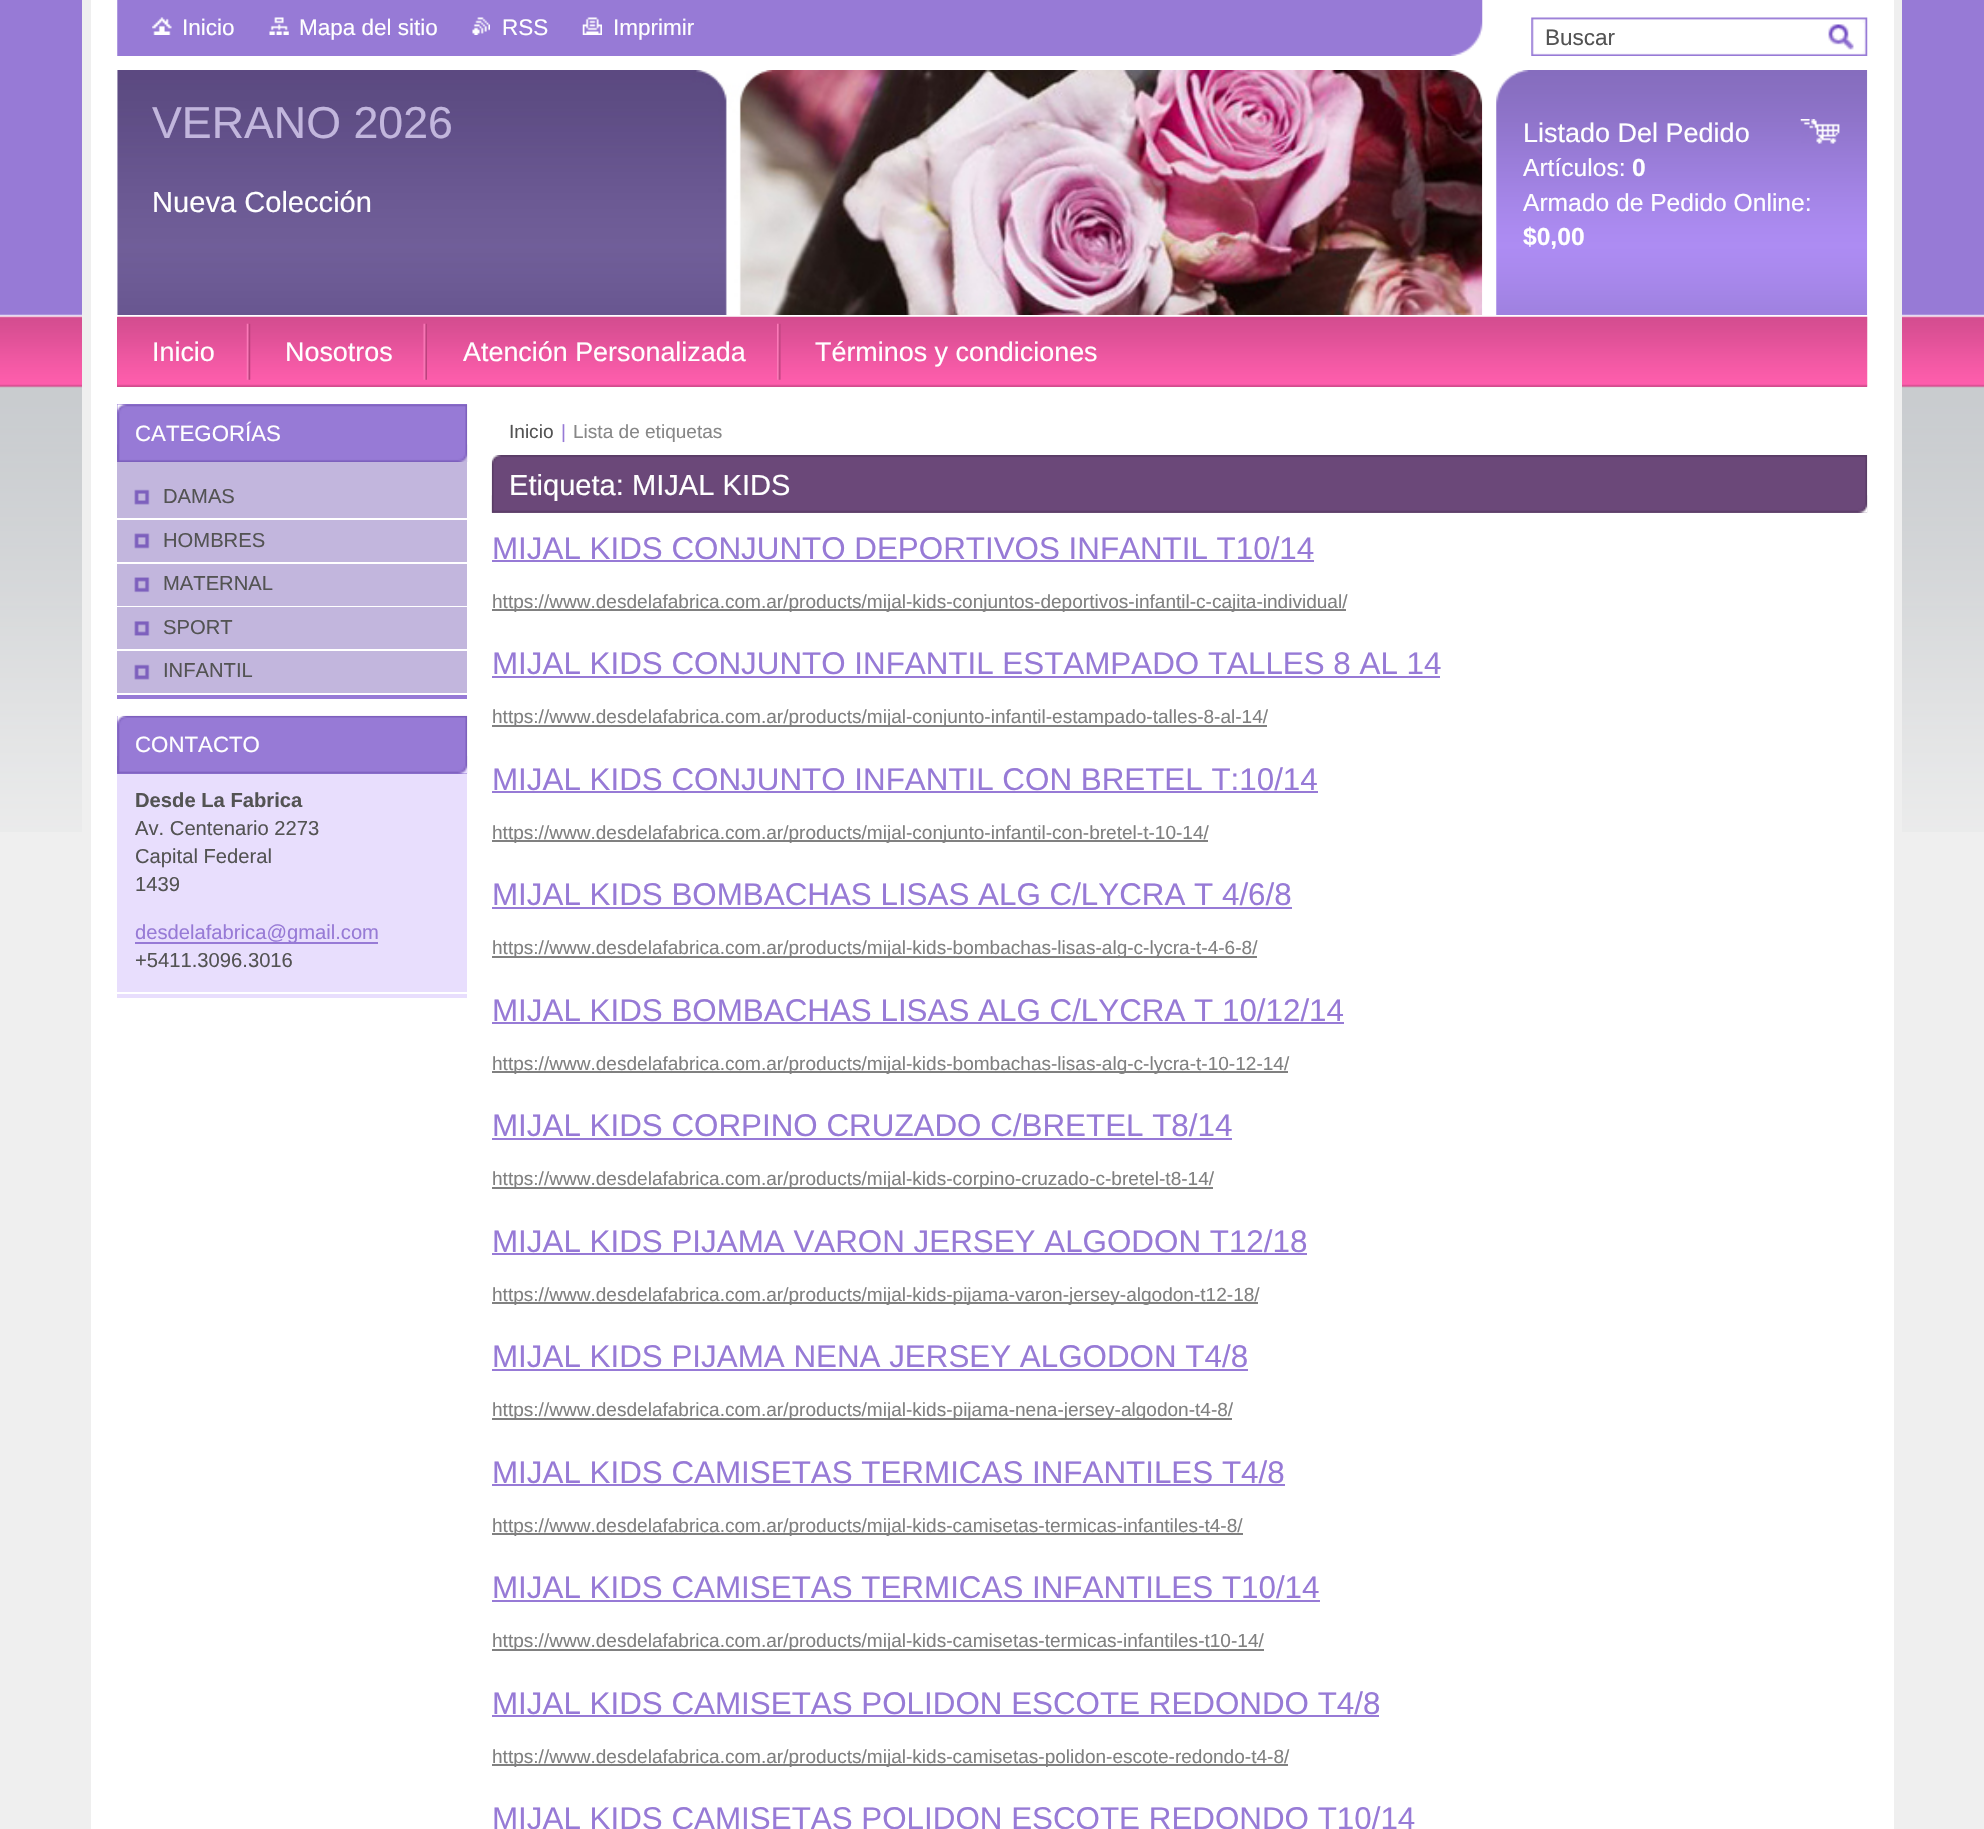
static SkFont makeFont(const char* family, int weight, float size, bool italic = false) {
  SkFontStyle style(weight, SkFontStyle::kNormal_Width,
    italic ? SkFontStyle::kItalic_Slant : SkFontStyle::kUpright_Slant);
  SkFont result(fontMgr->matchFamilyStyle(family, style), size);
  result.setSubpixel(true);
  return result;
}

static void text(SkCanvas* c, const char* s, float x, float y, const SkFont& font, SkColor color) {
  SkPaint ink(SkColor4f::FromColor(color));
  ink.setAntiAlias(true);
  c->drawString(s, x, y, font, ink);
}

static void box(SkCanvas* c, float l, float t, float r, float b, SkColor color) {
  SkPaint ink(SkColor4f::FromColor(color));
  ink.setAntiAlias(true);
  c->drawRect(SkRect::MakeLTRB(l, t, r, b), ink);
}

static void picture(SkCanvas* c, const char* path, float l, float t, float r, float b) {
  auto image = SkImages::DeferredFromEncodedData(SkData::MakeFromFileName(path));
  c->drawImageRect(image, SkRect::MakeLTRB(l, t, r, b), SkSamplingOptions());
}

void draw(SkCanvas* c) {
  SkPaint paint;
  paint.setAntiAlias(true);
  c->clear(0xffefefef);
  picture(c, "img_01.png", 0, 0, 1984, 832);
  box(c, 91, 0, 1894, 1829, 0xffffffff);
  box(c, 1894, 0, 1902, 832, 0xffefefef);
  box(c, 82, 0, 91, 832, 0xffefefef);
  picture(c, "img_02.png", 117, 0, 1483, 56);
  picture(c, "img_03.png", 152, 17, 172, 35);
  SkFont face1 = makeFont("Liberation Sans", 400, 22.5f);
  text(c, "Inicio", 182, 35, face1, 0xffffffff);
  picture(c, "img_04.png", 269, 17, 289, 35);
  text(c, "Mapa del sitio", 299, 35, face1, 0xffffffff);
  picture(c, "img_05.png", 472, 17, 490, 35);
  text(c, "RSS", 502, 35, face1, 0xffffffff);
  picture(c, "img_06.png", 582, 17, 602, 35);
  text(c, "Imprimir", 613, 35, face1, 0xffffffff);
  picture(c, "img_07.png", 1531, 17, 1868, 56);
  text(c, "Buscar", 1545, 45, face1, 0xff535353);
  picture(c, "img_08.png", 1826, 23, 1864, 51);
  picture(c, "img_09.png", 117, 70, 1483, 315);
  picture(c, "img_10.png", 1448, 70, 1482, 105);
  SkFont face2 = makeFont("Liberation Sans", 400, 44.75f);
  text(c, "VERANO 2026", 152, 138, face2, 0xffc2b6dd);
  SkFont face3 = makeFont("Liberation Sans", 400, 29.1f);
  text(c, "Nueva Colección", 152, 212, face3, 0xffffffff);
  picture(c, "img_11.png", 1496, 70, 1868, 315);
  picture(c, "img_12.png", 1800, 119, 1840, 144);
  SkFont face4 = makeFont("Liberation Sans", 400, 27);
  text(c, "Listado Del Pedido", 1523, 142, face4, 0xffffffff);
  SkFont face5 = makeFont("Liberation Sans", 400, 24.6f);
  text(c, "Artículos:", 1523, 176, face5, 0xffffffff);
  SkFont face6 = makeFont("Liberation Sans", 700, 24.6f);
  text(c, "0", 1632, 176, face6, 0xffffffff);
  text(c, "Armado de Pedido Online:", 1523, 211, face5, 0xffffffff);
  text(c, "$0,00", 1523, 245, face6, 0xffffffff);
  box(c, 117, 317, 1867, 387, 0xffd24c8e);
  picture(c, "img_13.png", 117, 316, 1868, 387);
  picture(c, "img_14.png", 246, 323, 251, 380);
  SkFont face7 = makeFont("Liberation Sans", 400, 26.9f);
  text(c, "Inicio", 152, 361, face7, 0xffffffff);
  picture(c, "img_15.png", 423, 323, 427, 380);
  text(c, "Nosotros", 285, 361, face7, 0xffffffff);
  picture(c, "img_16.png", 777, 323, 781, 380);
  text(c, "Atención Personalizada", 463, 361, face7, 0xffffffff);
  text(c, "Términos y condiciones", 815, 361, face7, 0xffffffff);
  box(c, 117, 695, 467, 699, 0xff977ad6);
  box(c, 117, 462, 467, 693, 0xffc2b6dd);
  box(c, 117, 404, 467, 462, 0xff977ad6);
  picture(c, "img_17.png", 117, 404, 468, 462);
  picture(c, "img_18.png", 117, 444, 468, 462);
  SkFont face8 = makeFont("Liberation Sans", 400, 22.25f);
  text(c, "CATEGORÍAS", 135, 441, face8, 0xffffffff);
  picture(c, "img_19.png", 134, 489, 150, 505);
  box(c, 117, 518, 467, 520, 0xffffffff);
  SkFont face9 = makeFont("Liberation Sans", 400, 20.2f);
  text(c, "DAMAS", 163, 503, face9, 0xff535353);
  picture(c, "img_20.png", 134, 533, 150, 549);
  box(c, 117, 562, 467, 564, 0xffffffff);
  text(c, "HOMBRES", 163, 547, face9, 0xff535353);
  picture(c, "img_21.png", 134, 577, 150, 593);
  box(c, 117, 606, 467, 607, 0xffffffff);
  text(c, "MATERNAL", 163, 590, face9, 0xff535353);
  picture(c, "img_22.png", 134, 621, 150, 636);
  box(c, 117, 649, 467, 651, 0xffffffff);
  text(c, "SPORT", 163, 634, face9, 0xff535353);
  picture(c, "img_19.png", 134, 664, 150, 680);
  text(c, "INFANTIL", 163, 677, face9, 0xff535353);
  box(c, 117, 994, 467, 998, 0xffe8defd);
  box(c, 117, 774, 467, 992, 0xffe8defd);
  box(c, 117, 716, 467, 774, 0xff977ad6);
  picture(c, "img_23.png", 117, 715, 468, 774);
  picture(c, "img_24.png", 117, 756, 468, 774);
  text(c, "CONTACTO", 135, 752, face8, 0xffffffff);
  SkFont face10 = makeFont("Liberation Sans", 700, 20.2f);
  text(c, "Desde La Fabrica", 135, 807, face10, 0xff535353);
  text(c, "Av. Centenario 2273", 135, 835, face9, 0xff535353);
  text(c, "Capital Federal", 135, 863, face9, 0xff535353);
  text(c, "1439", 135, 891, face9, 0xff535353);
  box(c, 135, 942, 378, 944, 0xff977ad6);
  text(c, "desdelafabrica@gmail.com", 135, 939, face9, 0xff977ad6);
  text(c, "+5411.3096.3016", 135, 967, face9, 0xff535353);
  SkFont face11 = makeFont("Liberation Sans", 400, 19.05f);
  text(c, "Inicio", 509, 438, face11, 0xff535353);
  text(c, "|", 561, 438, face11, 0xff977ad6);
  text(c, "Lista de etiquetas", 573, 438, face11, 0xff878787);
  picture(c, "img_25.png", 491, 455, 1868, 513);
  picture(c, "img_26.png", 491, 495, 1868, 513);
  text(c, "Etiqueta: MIJAL KIDS", 509, 495, face3, 0xffffffff);
  SkFont face12 = makeFont("Liberation Sans", 400, 31.35f);
  text(c, "MIJAL KIDS CONJUNTO DEPORTIVOS INFANTIL T10/14", 492, 559, face12, 0xff977ad6);
  box(c, 492, 560, 1314, 562, 0xff977ad6);
  box(c, 492, 609, 1346, 611, 0xff808080);
  text(c, "https://www.desdelafabrica.com.ar/products/mijal-kids-conjuntos-deportivos-infantil-c-cajita-individual/", 492, 608, face11, 0xff808080);
  text(c, "MIJAL KIDS CONJUNTO INFANTIL ESTAMPADO TALLES 8 AL 14", 492, 674, face12, 0xff977ad6);
  box(c, 492, 676, 1440, 678, 0xff977ad6);
  box(c, 492, 725, 1267, 727, 0xff808080);
  text(c, "https://www.desdelafabrica.com.ar/products/mijal-conjunto-infantil-estampado-talles-8-al-14/", 492, 723, face11, 0xff808080);
  text(c, "MIJAL KIDS CONJUNTO INFANTIL CON BRETEL T:10/14", 492, 790, face12, 0xff977ad6);
  box(c, 492, 791, 1318, 793, 0xff977ad6);
  box(c, 492, 840, 1208, 842, 0xff808080);
  text(c, "https://www.desdelafabrica.com.ar/products/mijal-conjunto-infantil-con-bretel-t-10-14/", 492, 839, face11, 0xff808080);
  text(c, "MIJAL KIDS BOMBACHAS LISAS ALG C/LYCRA T 4/6/8", 492, 905, face12, 0xff977ad6);
  box(c, 492, 907, 1292, 909, 0xff977ad6);
  box(c, 492, 956, 1257, 958, 0xff808080);
  text(c, "https://www.desdelafabrica.com.ar/products/mijal-kids-bombachas-lisas-alg-c-lycra-t-4-6-8/", 492, 954, face11, 0xff808080);
  text(c, "MIJAL KIDS BOMBACHAS LISAS ALG C/LYCRA T 10/12/14", 492, 1021, face12, 0xff977ad6);
  box(c, 492, 1022, 1344, 1024, 0xff977ad6);
  box(c, 492, 1071, 1288, 1073, 0xff808080);
  text(c, "https://www.desdelafabrica.com.ar/products/mijal-kids-bombachas-lisas-alg-c-lycra-t-10-12-14/", 492, 1070, face11, 0xff808080);
  text(c, "MIJAL KIDS CORPINO CRUZADO C/BRETEL T8/14", 492, 1136, face12, 0xff977ad6);
  box(c, 492, 1138, 1232, 1140, 0xff977ad6);
  box(c, 492, 1187, 1213, 1189, 0xff808080);
  text(c, "https://www.desdelafabrica.com.ar/products/mijal-kids-corpino-cruzado-c-bretel-t8-14/", 492, 1185, face11, 0xff808080);
  text(c, "MIJAL KIDS PIJAMA VARON JERSEY ALGODON T12/18", 492, 1252, face12, 0xff977ad6);
  box(c, 492, 1253, 1307, 1255, 0xff977ad6);
  box(c, 492, 1302, 1258, 1304, 0xff808080);
  text(c, "https://www.desdelafabrica.com.ar/products/mijal-kids-pijama-varon-jersey-algodon-t12-18/", 492, 1301, face11, 0xff808080);
  text(c, "MIJAL KIDS PIJAMA NENA JERSEY ALGODON T4/8", 492, 1367, face12, 0xff977ad6);
  box(c, 492, 1369, 1248, 1371, 0xff977ad6);
  box(c, 492, 1418, 1232, 1420, 0xff808080);
  text(c, "https://www.desdelafabrica.com.ar/products/mijal-kids-pijama-nena-jersey-algodon-t4-8/", 492, 1416, face11, 0xff808080);
  text(c, "MIJAL KIDS CAMISETAS TERMICAS INFANTILES T4/8", 492, 1483, face12, 0xff977ad6);
  box(c, 492, 1484, 1285, 1486, 0xff977ad6);
  box(c, 492, 1533, 1243, 1535, 0xff808080);
  text(c, "https://www.desdelafabrica.com.ar/products/mijal-kids-camisetas-termicas-infantiles-t4-8/", 492, 1532, face11, 0xff808080);
  text(c, "MIJAL KIDS CAMISETAS TERMICAS INFANTILES T10/14", 492, 1598, face12, 0xff977ad6);
  box(c, 492, 1600, 1320, 1602, 0xff977ad6);
  box(c, 492, 1649, 1264, 1651, 0xff808080);
  text(c, "https://www.desdelafabrica.com.ar/products/mijal-kids-camisetas-termicas-infantiles-t10-14/", 492, 1647, face11, 0xff808080);
  text(c, "MIJAL KIDS CAMISETAS POLIDON ESCOTE REDONDO T4/8", 492, 1714, face12, 0xff977ad6);
  box(c, 492, 1715, 1379, 1717, 0xff977ad6);
  box(c, 492, 1764, 1288, 1766, 0xff808080);
  text(c, "https://www.desdelafabrica.com.ar/products/mijal-kids-camisetas-polidon-escote-redondo-t4-8/", 492, 1763, face11, 0xff808080);
  text(c, "MIJAL KIDS CAMISETAS POLIDON ESCOTE REDONDO T10/14", 492, 1829, face12, 0xff977ad6);
}
